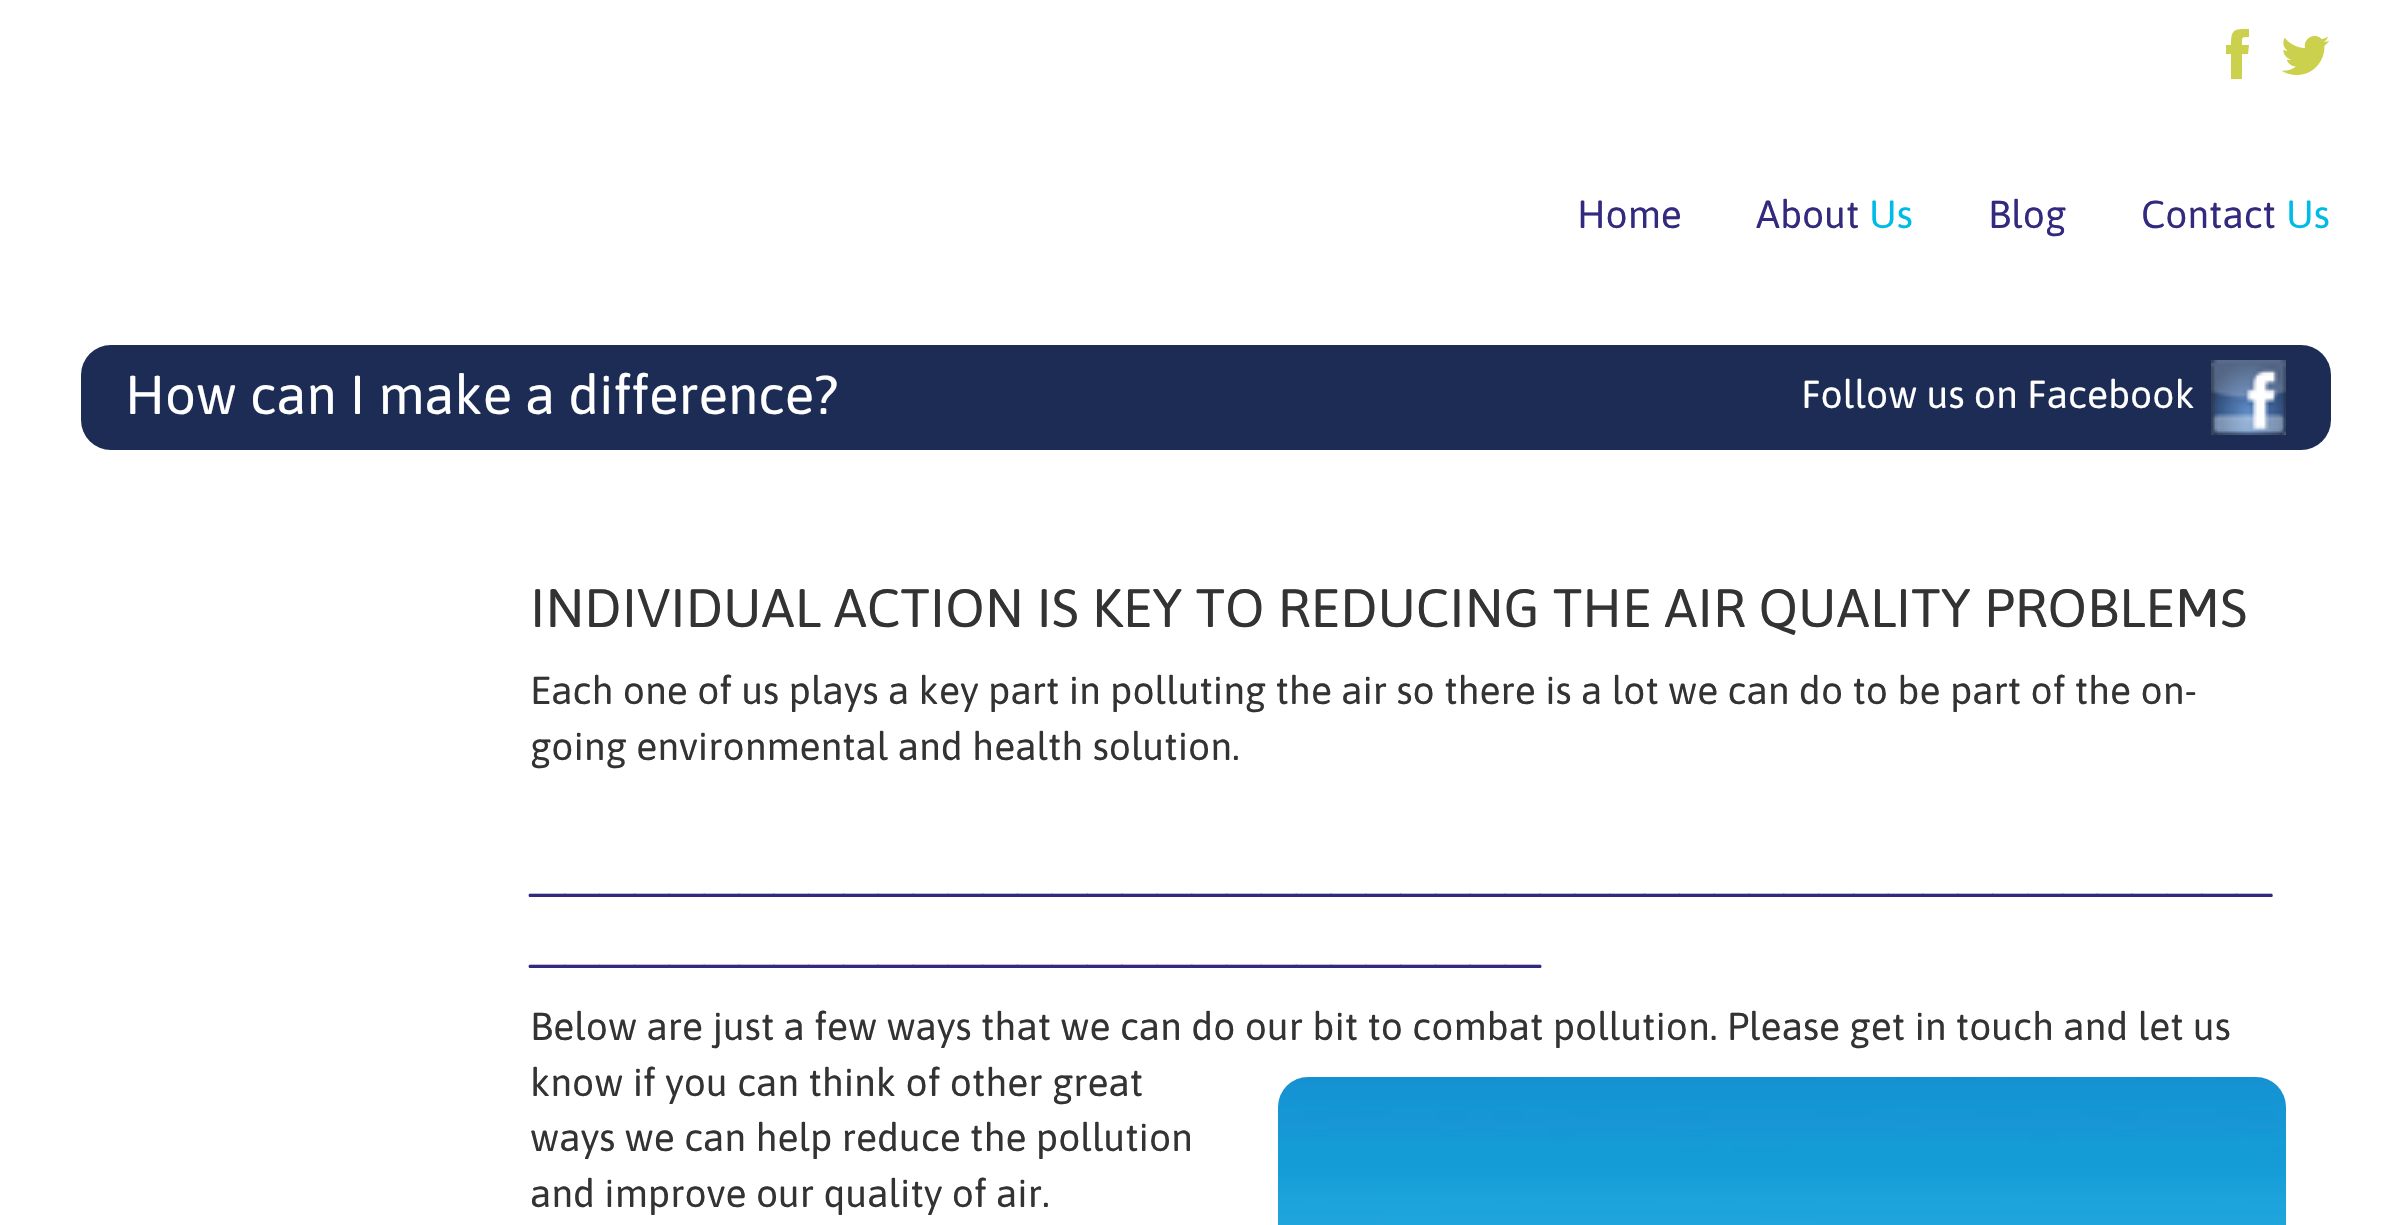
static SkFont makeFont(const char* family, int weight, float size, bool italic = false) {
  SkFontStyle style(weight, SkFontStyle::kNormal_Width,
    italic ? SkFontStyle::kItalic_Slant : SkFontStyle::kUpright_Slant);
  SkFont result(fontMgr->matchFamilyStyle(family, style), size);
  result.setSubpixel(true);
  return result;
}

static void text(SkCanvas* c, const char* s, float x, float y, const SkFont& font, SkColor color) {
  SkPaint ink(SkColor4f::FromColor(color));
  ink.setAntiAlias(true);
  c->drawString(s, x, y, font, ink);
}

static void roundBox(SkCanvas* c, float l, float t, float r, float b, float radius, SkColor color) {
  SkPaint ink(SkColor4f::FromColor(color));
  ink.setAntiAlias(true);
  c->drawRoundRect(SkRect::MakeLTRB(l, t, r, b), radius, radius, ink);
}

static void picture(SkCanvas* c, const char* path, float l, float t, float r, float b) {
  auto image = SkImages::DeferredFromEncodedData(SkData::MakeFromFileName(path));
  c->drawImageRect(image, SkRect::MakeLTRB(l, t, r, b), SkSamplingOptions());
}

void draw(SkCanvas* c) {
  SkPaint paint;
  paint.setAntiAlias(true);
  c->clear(0xffffffff);
  paint.setColor(0xffcbd14d);
  c->drawPath(SkPathBuilder().moveTo(2242, 45).lineTo(2249, 45).lineTo(2248, 54).lineTo(2242, 54).lineTo(2242, 79).lineTo(2231, 79).lineTo(2231, 54).lineTo(2226, 54).lineTo(2226, 45).lineTo(2231, 45).cubicTo(2231, 29, 2234, 29, 2249, 29).lineTo(2249, 37).cubicTo(2241, 37, 2242, 37, 2242, 45).close().detach(), paint);
  picture(c, "img_01.png", 2281, 36, 2330, 75);
  SkFont face1 = makeFont("Asap", 400, 39);
  text(c, "Home", 1577, 228, face1, 0xff322a7e);
  text(c, "About", 1756, 228, face1, 0xff322a7e);
  text(c, "Us", 1869, 228, face1, 0xff00bbe8);
  text(c, "Blog", 1988, 228, face1, 0xff322a7e);
  text(c, "Contact", 2141, 228, face1, 0xff322a7e);
  text(c, "Us", 2286, 228, face1, 0xff00bbe8);
  roundBox(c, 81, 345, 2331, 450, 30, 0xff1c2c54);
  SkFont face2 = makeFont("Asap", 400, 54.6f);
  text(c, "How can I make a difference?", 125, 414, face2, 0xffffffff);
  text(c, "Follow us on Facebook", 1801, 408, face1, 0xffffffff);
  picture(c, "img_02.png", 2211, 360, 2286, 435);
  SkFont face3 = makeFont("Asap", 400, 54);
  text(c, "INDIVIDUAL ACTION IS KEY TO REDUCING THE AIR QUALITY PROBLEMS", 530, 627, face3, 0xff333333);
  text(c, "Each one of us plays a key part in polluting the air so there is a lot we can do to be part of the on-", 530, 704, face1, 0xff333333);
  text(c, "going environmental and health solution.", 530, 760, face1, 0xff333333);
  SkFont face4 = makeFont("Asap", 400, 65.1f);
  text(c, "__________________________________________________", 530, 888, face4, 0xff322a7e);
  text(c, "_____________________________", 530, 959, face4, 0xff322a7e);
  text(c, "Below are just a few ways that we can do our bit to combat pollution. Please get in touch and let us", 530, 1040, face1, 0xff333333);
  text(c, "know if you can think of other great", 530, 1096, face1, 0xff333333);
  picture(c, "img_03.png", 1278, 1077, 2286, 1225);
  text(c, "ways we can help reduce the pollution", 530, 1151, face1, 0xff333333);
  text(c, "and improve our quality of air.", 530, 1207, face1, 0xff333333);
}
